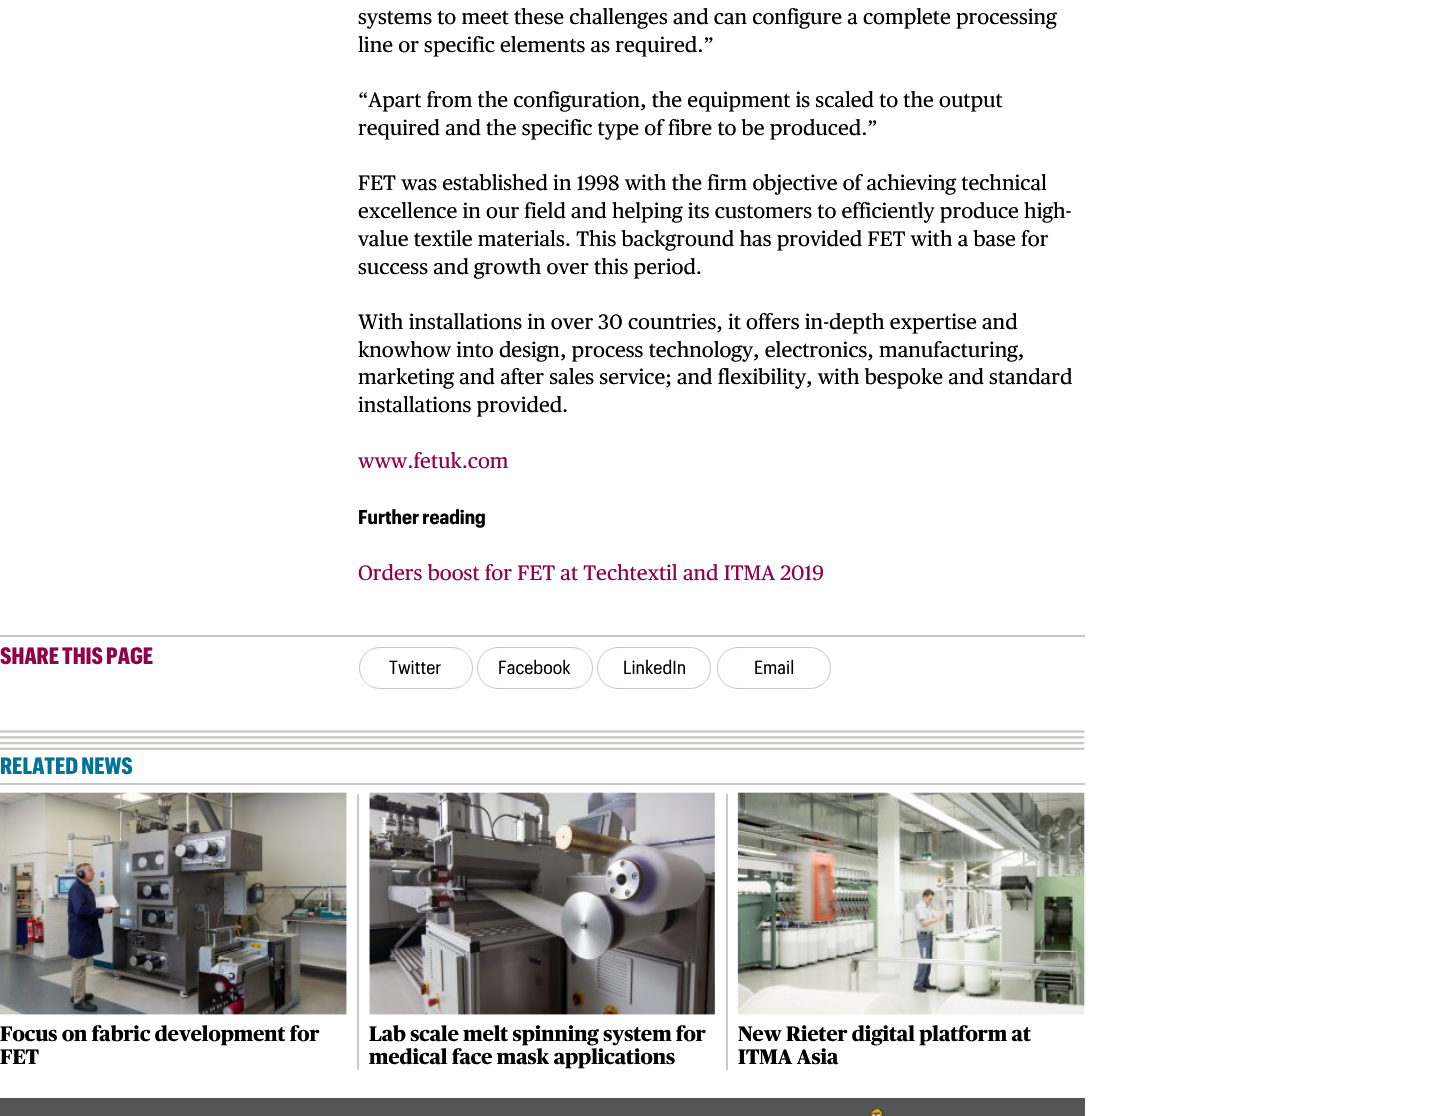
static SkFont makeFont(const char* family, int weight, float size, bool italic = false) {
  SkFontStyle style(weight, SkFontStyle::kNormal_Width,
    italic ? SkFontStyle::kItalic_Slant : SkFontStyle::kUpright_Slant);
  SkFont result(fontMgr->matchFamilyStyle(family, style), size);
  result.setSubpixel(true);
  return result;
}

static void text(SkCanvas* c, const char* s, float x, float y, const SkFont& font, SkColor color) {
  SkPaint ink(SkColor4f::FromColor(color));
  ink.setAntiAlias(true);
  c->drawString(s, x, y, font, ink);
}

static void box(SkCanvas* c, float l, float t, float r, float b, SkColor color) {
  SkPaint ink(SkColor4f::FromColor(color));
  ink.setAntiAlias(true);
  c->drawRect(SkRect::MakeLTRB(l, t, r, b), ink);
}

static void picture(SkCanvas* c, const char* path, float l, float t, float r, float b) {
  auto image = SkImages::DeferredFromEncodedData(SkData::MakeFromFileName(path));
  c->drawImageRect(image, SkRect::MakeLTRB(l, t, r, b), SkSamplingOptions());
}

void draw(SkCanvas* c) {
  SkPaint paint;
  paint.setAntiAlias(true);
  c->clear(0xffffffff);
  SkFont face1 = makeFont("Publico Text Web", 400, 20.8f);
  text(c, "systems to meet these challenges and can configure a complete processing", 358, 24, face1, 0xff000000);
  text(c, "line or specific elements as required.”", 358, 52, face1, 0xff000000);
  text(c, "“Apart from the configuration, the equipment is scaled to the output", 358, 107, face1, 0xff000000);
  text(c, "required and the specific type of fibre to be produced.”", 358, 135, face1, 0xff000000);
  text(c, "FET was established in 1998 with the firm objective of achieving technical", 358, 190, face1, 0xff000000);
  text(c, "excellence in our field and helping its customers to efficiently produce high-", 358, 218, face1, 0xff000000);
  text(c, "value textile materials. This background has provided FET with a base for", 358, 246, face1, 0xff000000);
  text(c, "success and growth over this period.", 358, 274, face1, 0xff000000);
  text(c, "With installations in over 30 countries, it offers in-depth expertise and", 358, 329, face1, 0xff000000);
  text(c, "knowhow into design, process technology, electronics, manufacturing,", 358, 357, face1, 0xff000000);
  text(c, "marketing and after sales service; and flexibility, with bespoke and standard", 358, 384, face1, 0xff000000);
  text(c, "installations provided.", 358, 412, face1, 0xff000000);
  text(c, "www.fetuk.com", 358, 468, face1, 0xff910048);
  SkFont face2 = makeFont("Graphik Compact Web", 700, 19.5f);
  text(c, "Further reading", 358, 524, face2, 0xff000000);
  text(c, "Orders boost for FET at Techtextil and ITMA 2019", 358, 580, face1, 0xff910048);
  box(c, 0, 635, 1085, 637, 0xffc8c9c7);
  SkFont face3 = makeFont("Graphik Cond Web", 700, 23);
  text(c, "SHARE THIS PAGE", 0, 664, face3, 0xff910048);
  paint.setStyle(SkPaint::kStroke_Style);
  paint.setStrokeWidth(1);
  paint.setColor(0xffc8c9c7);
  c->drawRoundRect(SkRect::MakeLTRB(359.5f, 647.5f, 472.5f, 688.5f), 20.5f, 20.5f, paint);
  SkFont face4 = makeFont("Graphik Compact Web", 400, 18.5f);
  text(c, "Twitter", 389, 674, face4, 0xff000000);
  c->drawRoundRect(SkRect::MakeLTRB(477.5f, 647.5f, 592.5f, 688.5f), 20.5f, 20.5f, paint);
  text(c, "Facebook", 498, 674, face4, 0xff000000);
  c->drawRoundRect(SkRect::MakeLTRB(597.5f, 647.5f, 710.5f, 688.5f), 20.5f, 20.5f, paint);
  text(c, "LinkedIn", 623, 674, face4, 0xff000000);
  c->drawRoundRect(SkRect::MakeLTRB(717.5f, 647.5f, 830.5f, 688.5f), 20.5f, 20.5f, paint);
  text(c, "Email", 754, 674, face4, 0xff000000);
  picture(c, "img_01.png", 0, 730, 1085, 750);
  box(c, 0, 783, 1085, 785, 0xffc8c9c7);
  text(c, "RELATED NEWS", 0, 774, face3, 0xff007396);
  box(c, 357, 794, 359, 1070, 0xffc8c9c7);
  picture(c, "img_02.png", 0, 792, 347, 1015);
  SkFont face5 = makeFont("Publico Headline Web", 800, 20.8f);
  text(c, "Focus on fabric development for", 0, 1041, face5, 0xff000000);
  text(c, "FET", 0, 1064, face5, 0xff000000);
  box(c, 726, 794, 728, 1070, 0xffc8c9c7);
  picture(c, "img_03.png", 369, 792, 715, 1015);
  text(c, "Lab scale melt spinning system for", 369, 1041, face5, 0xff000000);
  text(c, "medical face mask applications", 369, 1064, face5, 0xff000000);
  picture(c, "img_04.png", 737, 792, 1085, 1015);
  text(c, "New Rieter digital platform at", 738, 1041, face5, 0xff000000);
  text(c, "ITMA Asia", 738, 1064, face5, 0xff000000);
  box(c, 0, 1098, 1085, 1116, 0xff555555);
  picture(c, "img_05.png", 868, 1109, 884, 1116);
}
